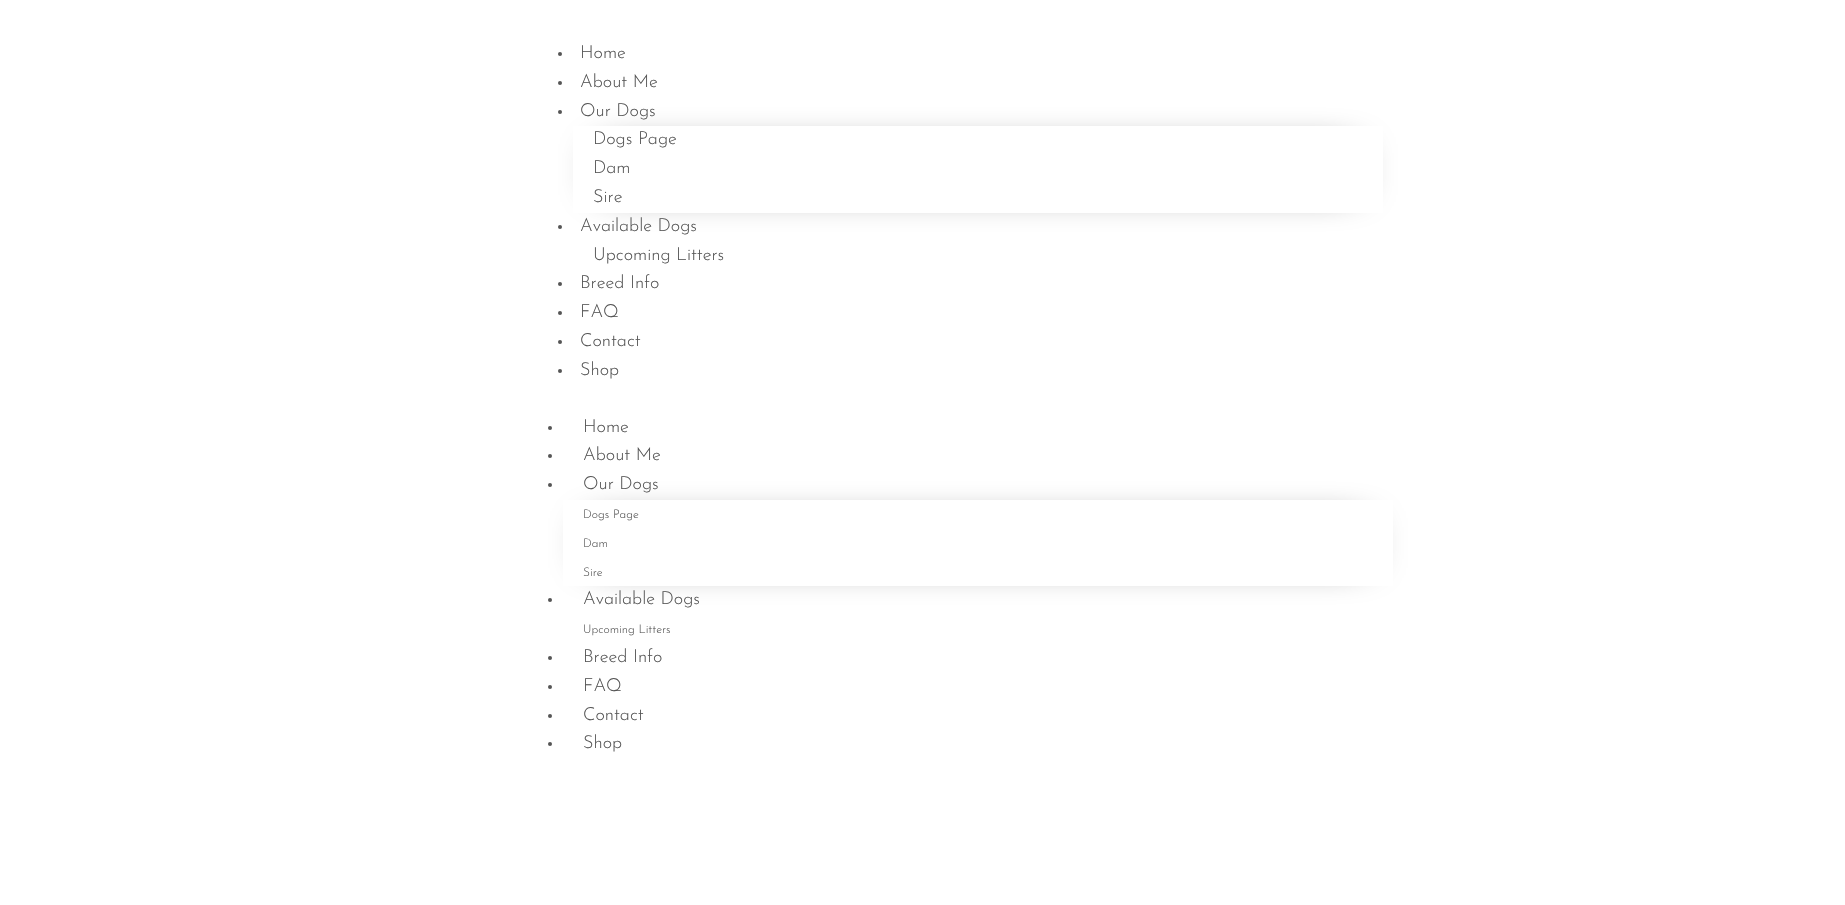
static SkFont makeFont(const char* family, int weight, float size, bool italic = false) {
  SkFontStyle style(weight, SkFontStyle::kNormal_Width,
    italic ? SkFontStyle::kItalic_Slant : SkFontStyle::kUpright_Slant);
  SkFont result(fontMgr->matchFamilyStyle(family, style), size);
  result.setSubpixel(true);
  return result;
}

static void text(SkCanvas* c, const char* s, float x, float y, const SkFont& font, SkColor color) {
  SkPaint ink(SkColor4f::FromColor(color));
  ink.setAntiAlias(true);
  c->drawString(s, x, y, font, ink);
}

void draw(SkCanvas* c) {
  SkPaint paint;
  paint.setAntiAlias(true);
  c->clear(0xffffffff);
  paint.setColor(0xff555555);
  c->drawCircle(560, 54, 2, paint);
  SkFont face1 = makeFont("Josefin Sans", 300, 18);
  text(c, "Home", 580, 58, face1, 0xff555555);
  c->drawCircle(560, 83, 2, paint);
  text(c, "About Me", 580, 87, face1, 0xff555555);
  c->save();
  c->clipPath(SkPathBuilder(SkPathFillType::kEvenOdd).moveTo(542, 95).lineTo(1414, 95).lineTo(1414, 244).lineTo(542, 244).close().moveTo(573, 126).lineTo(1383, 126).lineTo(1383, 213).lineTo(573, 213).close().detach(), true);
  paint.setColor(0xff000000);
  paint.setMaskFilter(SkMaskFilter::MakeBlur(kNormal_SkBlurStyle, 20));
  c->drawRect(SkRect::MakeLTRB(603, 156, 1353, 183), paint);
  paint.setMaskFilter(nullptr);
  c->restore();
  paint.setColor(0xff555555);
  c->drawCircle(560, 112, 2, paint);
  text(c, "Our Dogs", 580, 116, face1, 0xff555555);
  text(c, "Dogs Page", 593, 144, face1, 0xff555555);
  text(c, "Dam", 593, 173, face1, 0xff555555);
  text(c, "Sire", 593, 202, face1, 0xff555555);
  c->drawCircle(560, 227, 2, paint);
  text(c, "Available Dogs", 580, 231, face1, 0xff555555);
  text(c, "Upcoming Litters", 593, 260, face1, 0xff555555);
  c->drawCircle(560, 284, 2, paint);
  text(c, "Breed Info", 580, 288, face1, 0xff555555);
  c->drawCircle(560, 313, 2, paint);
  text(c, "FAQ", 580, 317, face1, 0xff555555);
  c->drawCircle(560, 342, 2, paint);
  text(c, "Contact", 580, 346, face1, 0xff555555);
  c->drawCircle(560, 371, 2, paint);
  text(c, "Shop", 580, 375, face1, 0xff555555);
  c->drawCircle(550, 428, 2, paint);
  text(c, "Home", 583, 432, face1, 0xff555555);
  c->drawCircle(550, 456, 2, paint);
  text(c, "About Me", 583, 460, face1, 0xff555555);
  c->save();
  c->clipPath(SkPathBuilder(SkPathFillType::kEvenOdd).moveTo(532, 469).lineTo(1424, 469).lineTo(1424, 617).lineTo(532, 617).close().moveTo(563, 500).lineTo(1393, 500).lineTo(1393, 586).lineTo(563, 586).close().detach(), true);
  paint.setColor(0xff000000);
  paint.setMaskFilter(SkMaskFilter::MakeBlur(kNormal_SkBlurStyle, 20));
  c->drawRect(SkRect::MakeLTRB(593, 530, 1363, 556), paint);
  paint.setMaskFilter(nullptr);
  c->restore();
  paint.setColor(0xff555555);
  c->drawCircle(550, 485, 2, paint);
  text(c, "Our Dogs", 583, 489, face1, 0xff555555);
  SkFont face2 = makeFont("Josefin Sans", 300, 12);
  text(c, "Dogs Page", 583, 518, face2, 0xff555555);
  text(c, "Dam", 583, 547, face2, 0xff555555);
  text(c, "Sire", 583, 576, face2, 0xff555555);
  c->drawCircle(550, 600, 2, paint);
  text(c, "Available Dogs", 583, 604, face1, 0xff555555);
  text(c, "Upcoming Litters", 583, 633, face2, 0xff555555);
  c->drawCircle(550, 658, 2, paint);
  text(c, "Breed Info", 583, 662, face1, 0xff555555);
  c->drawCircle(550, 687, 2, paint);
  text(c, "FAQ", 583, 691, face1, 0xff555555);
  c->drawCircle(550, 716, 2, paint);
  text(c, "Contact", 583, 720, face1, 0xff555555);
  c->drawCircle(550, 744, 2, paint);
  text(c, "Shop", 583, 748, face1, 0xff555555);
}
